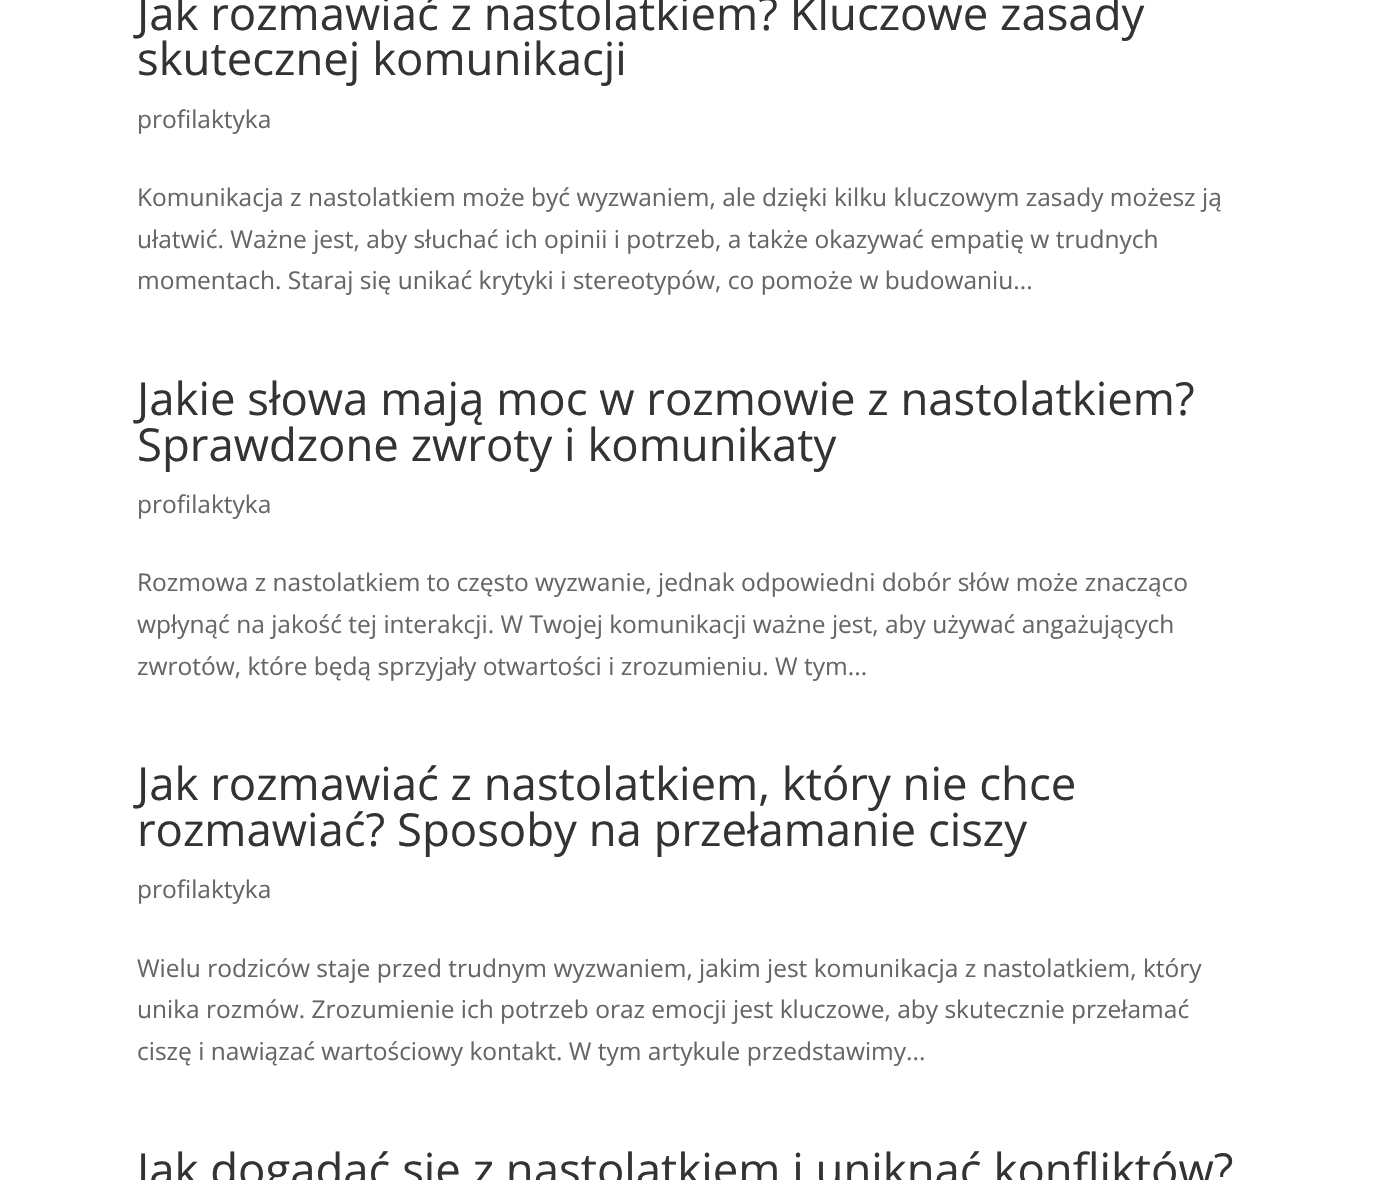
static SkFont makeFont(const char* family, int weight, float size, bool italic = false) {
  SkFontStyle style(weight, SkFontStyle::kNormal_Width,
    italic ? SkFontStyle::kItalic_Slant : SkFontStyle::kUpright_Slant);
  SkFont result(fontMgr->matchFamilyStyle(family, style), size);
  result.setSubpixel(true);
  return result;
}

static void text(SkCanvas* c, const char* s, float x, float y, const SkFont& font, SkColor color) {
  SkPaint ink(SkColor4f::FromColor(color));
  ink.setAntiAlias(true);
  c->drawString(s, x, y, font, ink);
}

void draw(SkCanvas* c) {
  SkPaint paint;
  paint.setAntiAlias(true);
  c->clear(0xffffffff);
  SkFont face1 = makeFont("Open Sans", 400, 45.5f);
  text(c, "Jak rozmawiać z nastolatkiem? Kluczowe zasady", 137, 30, face1, 0xff333333);
  text(c, "skutecznej komunikacji", 137, 75, face1, 0xff333333);
  SkFont face2 = makeFont("Open Sans", 400, 24.5f);
  text(c, "profilaktyka", 137, 128, face2, 0xff666666);
  text(c, "Komunikacja z nastolatkiem może być wyzwaniem, ale dzięki kilku kluczowym zasady możesz ją", 137, 206, face2, 0xff666666);
  text(c, "ułatwić. Ważne jest, aby słuchać ich opinii i potrzeb, a także okazywać empatię w trudnych", 137, 248, face2, 0xff666666);
  text(c, "momentach. Staraj się unikać krytyki i stereotypów, co pomoże w budowaniu...", 137, 289, face2, 0xff666666);
  text(c, "Jakie słowa mają moc w rozmowie z nastolatkiem?", 137, 415, face1, 0xff333333);
  text(c, "Sprawdzone zwroty i komunikaty", 137, 461, face1, 0xff333333);
  text(c, "profilaktyka", 137, 513, face2, 0xff666666);
  text(c, "Rozmowa z nastolatkiem to często wyzwanie, jednak odpowiedni dobór słów może znacząco", 137, 591, face2, 0xff666666);
  text(c, "wpłynąć na jakość tej interakcji. W Twojej komunikacji ważne jest, aby używać angażujących", 137, 633, face2, 0xff666666);
  text(c, "zwrotów, które będą sprzyjały otwartości i zrozumieniu. W tym...", 137, 675, face2, 0xff666666);
  text(c, "Jak rozmawiać z nastolatkiem, który nie chce", 137, 800, face1, 0xff333333);
  text(c, "rozmawiać? Sposoby na przełamanie ciszy", 137, 846, face1, 0xff333333);
  text(c, "profilaktyka", 137, 898, face2, 0xff666666);
  text(c, "Wielu rodziców staje przed trudnym wyzwaniem, jakim jest komunikacja z nastolatkiem, który", 137, 977, face2, 0xff666666);
  text(c, "unika rozmów. Zrozumienie ich potrzeb oraz emocji jest kluczowe, aby skutecznie przełamać", 137, 1018, face2, 0xff666666);
  text(c, "ciszę i nawiązać wartościowy kontakt. W tym artykule przedstawimy...", 137, 1060, face2, 0xff666666);
  text(c, "Jak dogadać się z nastolatkiem i uniknąć konfliktów?", 137, 1186, face1, 0xff333333);
}
